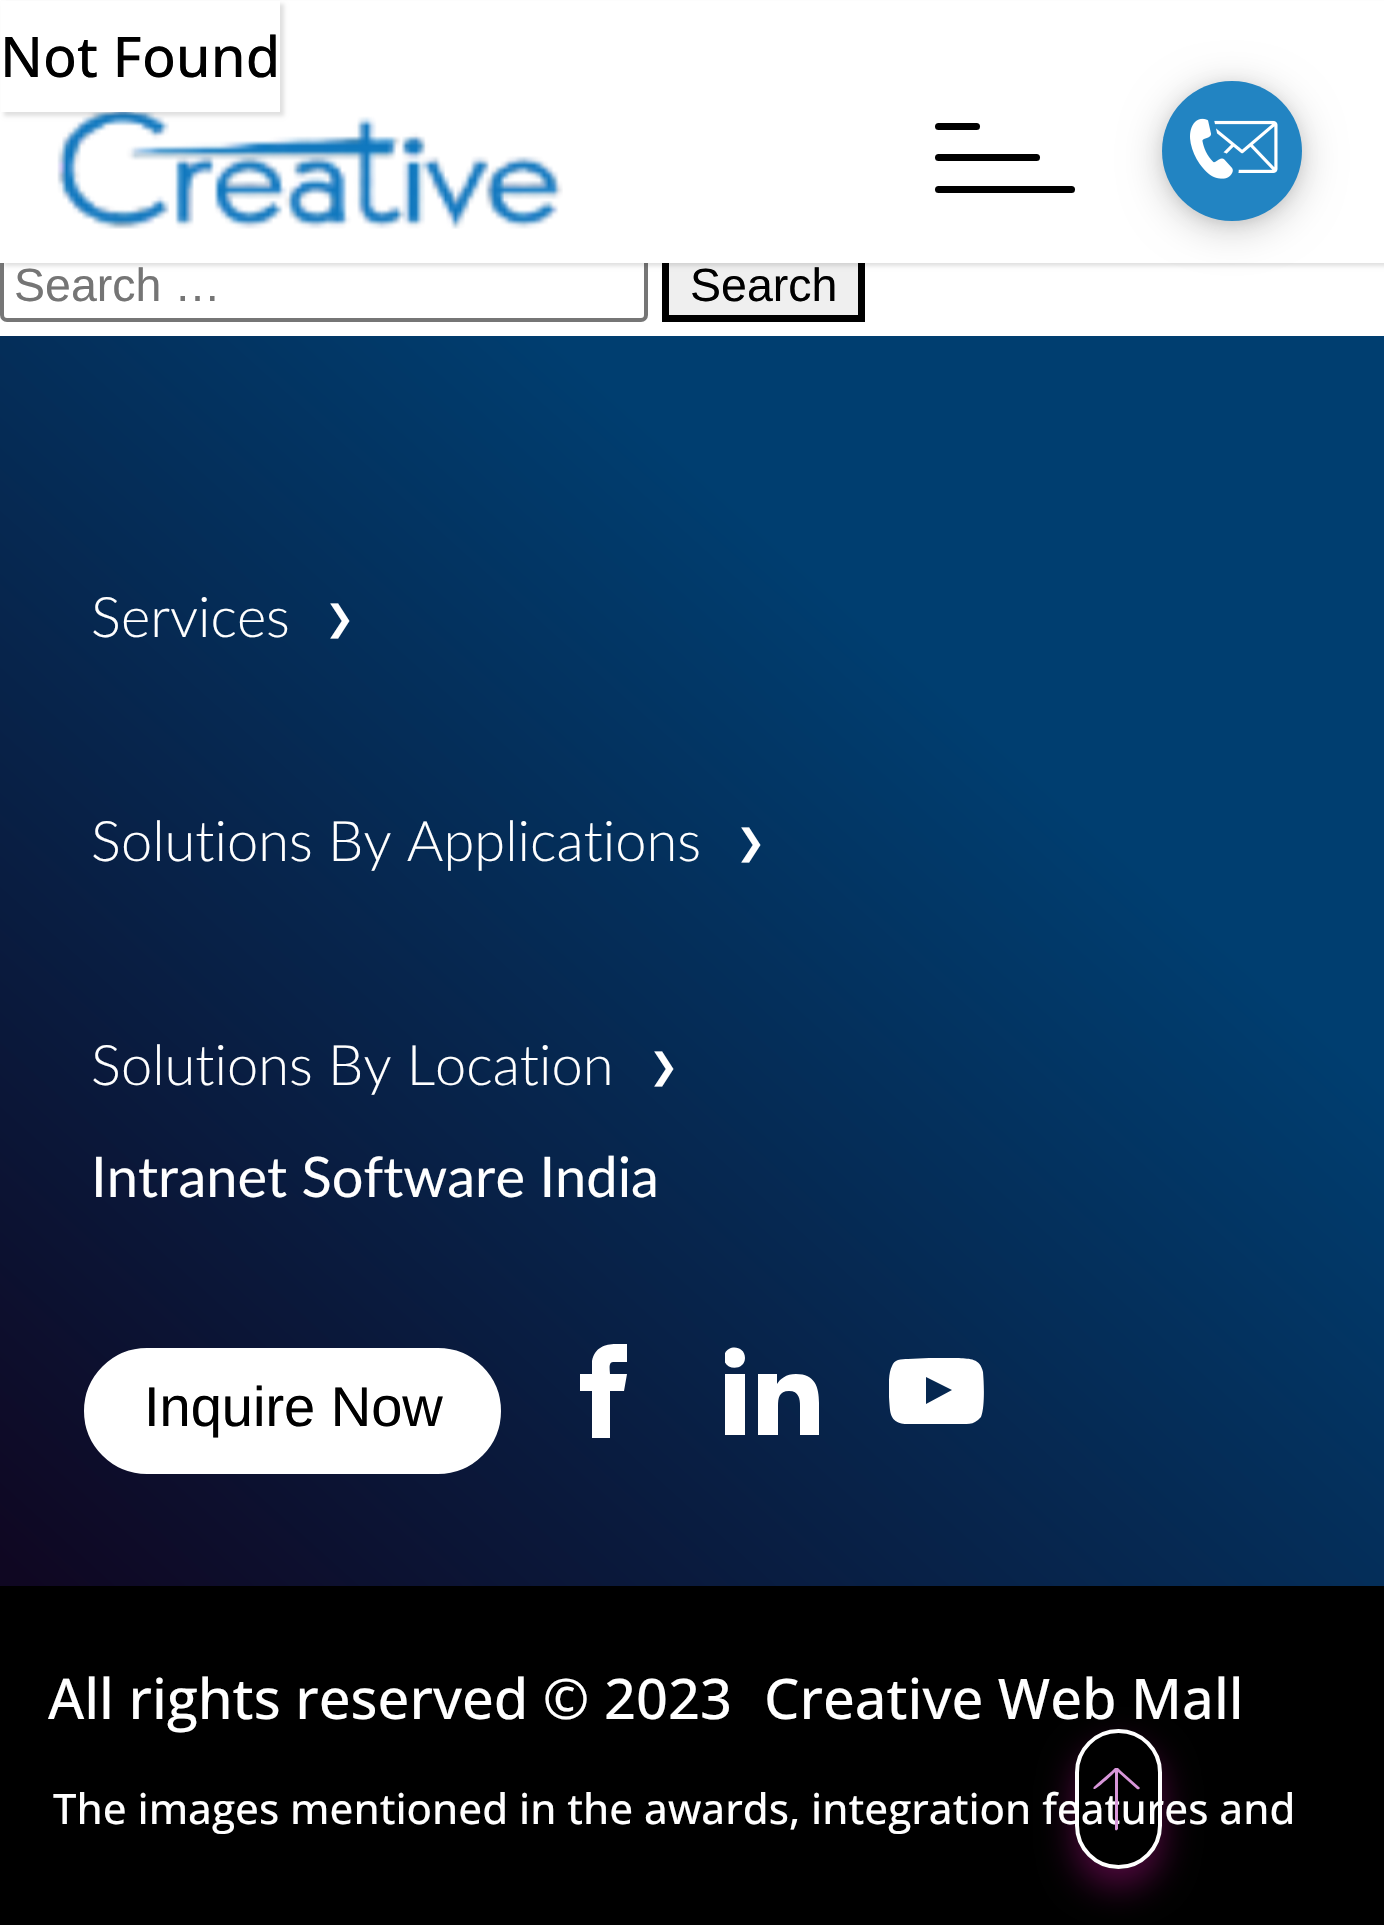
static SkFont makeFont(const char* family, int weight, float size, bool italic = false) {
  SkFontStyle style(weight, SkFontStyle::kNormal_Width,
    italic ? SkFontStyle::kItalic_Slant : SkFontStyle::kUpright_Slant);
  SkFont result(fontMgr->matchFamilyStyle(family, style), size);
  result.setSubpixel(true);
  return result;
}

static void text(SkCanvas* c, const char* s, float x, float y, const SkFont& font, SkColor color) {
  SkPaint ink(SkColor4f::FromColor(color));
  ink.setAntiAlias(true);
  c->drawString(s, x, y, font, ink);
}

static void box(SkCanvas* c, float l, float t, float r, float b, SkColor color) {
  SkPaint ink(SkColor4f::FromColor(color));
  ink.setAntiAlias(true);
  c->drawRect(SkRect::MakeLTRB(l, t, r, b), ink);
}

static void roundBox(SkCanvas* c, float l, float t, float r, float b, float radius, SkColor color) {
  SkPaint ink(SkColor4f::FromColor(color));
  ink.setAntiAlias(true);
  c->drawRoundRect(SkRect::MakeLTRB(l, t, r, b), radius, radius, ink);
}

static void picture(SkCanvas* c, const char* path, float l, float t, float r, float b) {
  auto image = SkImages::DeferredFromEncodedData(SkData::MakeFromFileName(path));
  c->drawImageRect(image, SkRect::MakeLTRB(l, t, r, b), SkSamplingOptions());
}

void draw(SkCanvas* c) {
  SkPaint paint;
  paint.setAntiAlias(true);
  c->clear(0xffffffff);
  paint.setStyle(SkPaint::kStroke_Style);
  paint.setStrokeWidth(4);
  paint.setColor(0xff767676);
  c->drawRoundRect(SkRect::MakeLTRB(2, 251, 646, 320), 5, 5, paint);
  box(c, 669, 263, 858, 315, 0xffefefef);
  paint.setStrokeWidth(7);
  paint.setColor(0xff000000);
  c->drawRect(SkRect::MakeLTRB(665.5f, 252.5f, 861.5f, 318.5f), paint);
  paint.setStyle(SkPaint::kFill_Style);
  paint.setColor(0x1f000000);
  paint.setMaskFilter(SkMaskFilter::MakeBlur(kNormal_SkBlurStyle, 2));
  c->drawRect(SkRect::MakeLTRB(4, 4, 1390, 266), paint);
  paint.setMaskFilter(nullptr);
  box(c, 0, 1, 1384, 263, 0xffffffff);
  picture(c, "img_01.png", 57, 112, 563, 229);
  roundBox(c, 935, 123, 980, 130, 3.5f, 0xff000000);
  roundBox(c, 935, 154, 1040, 161, 3.5f, 0xff000000);
  roundBox(c, 935, 186, 1075, 193, 3.5f, 0xff000000);
  paint.setColor(0x33000000);
  paint.setMaskFilter(SkMaskFilter::MakeBlur(kNormal_SkBlurStyle, 21));
  c->drawRoundRect(SkRect::MakeLTRB(1162, 88, 1302, 228), 70, 70, paint);
  paint.setMaskFilter(nullptr);
  paint.setColor(0x1a000000);
  paint.setMaskFilter(SkMaskFilter::MakeBlur(kNormal_SkBlurStyle, 7));
  c->drawRoundRect(SkRect::MakeLTRB(1162, 84, 1302, 224), 70, 70, paint);
  paint.setMaskFilter(nullptr);
  paint.setColor(0xff2284c2);
  c->drawCircle(1232, 151, 70, paint);
  picture(c, "img_02.png", 1190, 118, 1278, 179);
  paint.setColor(0x1f000000);
  paint.setMaskFilter(SkMaskFilter::MakeBlur(kNormal_SkBlurStyle, 2));
  c->drawRect(SkRect::MakeLTRB(4, 4, 284, 116), paint);
  paint.setMaskFilter(nullptr);
  box(c, 1, 1, 280, 112, 0xffffffff);
  SkFont face1 = makeFont("Open Sans", 500, 56);
  text(c, "Not Found", 0, 77, face1, 0xff000000);
  SkFont face2 = makeFont("Liberation Sans", 400, 46.5f);
  text(c, "Search …", 14, 301, face2, 0xff757575);
  text(c, "Search", 690, 301, face2, 0xff000000);
  {
    const SkColor colors[] = {0xff0f0722, 0xff003e70};
    const float stops[] = {0.01f, 0.7f};
    const SkPoint ends[] = {{72, 1650}, {1314, 271}};
    paint.setShader(SkGradientShader::MakeLinear(ends, colors, stops, 2, SkTileMode::kClamp));
    paint.setAlpha(255);
  }
  c->drawRect(SkRect::MakeLTRB(0, 336, 1384, 1586), paint);
  SkFont face3 = makeFont("Lato", 300, 56);
  text(c, "Services", 91, 637, face3, 0xffffffff);
  SkFont face4 = makeFont("DejaVu Sans", 400, 35);
  text(c, "❯", 325, 630, face4, 0xffffffff);
  text(c, "Solutions By Applications", 91, 861, face3, 0xffffffff);
  text(c, "❯", 736, 854, face4, 0xffffffff);
  text(c, "Solutions By Location", 91, 1085, face3, 0xffffffff);
  text(c, "❯", 649, 1078, face4, 0xffffffff);
  SkFont face5 = makeFont("Lato", 400, 56);
  text(c, "Intranet Software India", 91, 1197, face5, 0xffffffff);
  paint.setShader(nullptr);
  paint.setColor(0xffffffff);
  c->drawRoundRect(SkRect::MakeLTRB(86, 1350, 499, 1472), 61, 61, paint);
  paint.setStyle(SkPaint::kStroke_Style);
  paint.setStrokeWidth(4);
  c->drawRoundRect(SkRect::MakeLTRB(86, 1350, 499, 1472), 61, 61, paint);
  SkFont face6 = makeFont("Liberation Sans", 400, 56);
  text(c, "Inquire Now", 144, 1426, face6, 0xff000000);
  c->save();
  c->clipRect(SkRect::MakeLTRB(557, 1344, 651, 1439));
  paint.setStyle(SkPaint::kFill_Style);
  c->drawPath(SkPathBuilder(SkPathFillType::kEvenOdd).moveTo(613, 1362).lineTo(627, 1362).lineTo(627, 1344).cubicTo(613, 1344, 596, 1342, 592, 1361).lineTo(592, 1374).lineTo(580, 1374).lineTo(580, 1391).lineTo(592, 1391).lineTo(592, 1438).lineTo(610, 1438).lineTo(610, 1391).lineTo(624, 1391).lineTo(627, 1374).lineTo(610, 1374).cubicTo(610, 1371, 608, 1362, 613, 1362).close().detach(), paint);
  c->restore();
  c->save();
  c->clipRect(SkRect::MakeLTRB(725, 1344, 819, 1439));
  c->drawPath(SkPathBuilder().moveTo(758, 1374).lineTo(777, 1374).lineTo(777, 1384).cubicTo(780, 1379, 786, 1374, 796, 1374).cubicTo(815, 1374, 819, 1387, 819, 1403).lineTo(819, 1435).lineTo(800, 1435).lineTo(800, 1406).cubicTo(800, 1399, 799, 1391, 789, 1391).cubicTo(779, 1391, 778, 1398, 778, 1406).lineTo(778, 1435).lineTo(758, 1435).close().moveTo(745, 1358).cubicTo(745, 1371, 724, 1371, 724, 1358).cubicTo(724, 1344, 745, 1344, 745, 1358).close().moveTo(724, 1374).lineTo(745, 1374).lineTo(745, 1435).lineTo(724, 1435).close().detach(), paint);
  c->restore();
  c->save();
  c->clipRect(SkRect::MakeLTRB(889, 1344, 984, 1439));
  c->drawPath(SkPathBuilder().moveTo(983, 1372).cubicTo(980, 1358, 970, 1359, 959, 1358).lineTo(929, 1358).lineTo(908, 1359).cubicTo(905, 1359, 901, 1359, 898, 1360).cubicTo(895, 1361, 893, 1363, 892, 1366).cubicTo(887, 1375, 889, 1400, 890, 1410).cubicTo(892, 1426, 905, 1424, 918, 1424).lineTo(943, 1424).lineTo(964, 1424).cubicTo(967, 1424, 972, 1424, 975, 1422).cubicTo(977, 1421, 979, 1419, 981, 1417).cubicTo(985, 1407, 984, 1383, 983, 1372).close().moveTo(926, 1404).lineTo(926, 1377).lineTo(952, 1390).close().detach(), paint);
  c->restore();
  box(c, 0, 1586, 1384, 1925, 0xff000000);
  c->save();
  c->clipPath(SkPathBuilder(SkPathFillType::kEvenOdd).moveTo(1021, 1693).lineTo(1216, 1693).lineTo(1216, 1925).lineTo(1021, 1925).close().moveTo(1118.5f, 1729).cubicTo(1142.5f, 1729, 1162, 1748.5f, 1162, 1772.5f).lineTo(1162, 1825.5f).cubicTo(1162, 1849.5f, 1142.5f, 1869, 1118.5f, 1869).cubicTo(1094.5f, 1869, 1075, 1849.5f, 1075, 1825.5f).lineTo(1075, 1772.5f).cubicTo(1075, 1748.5f, 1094.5f, 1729, 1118.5f, 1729).close().detach(), true);
  paint.setColor(0x7aa60e80);
  paint.setMaskFilter(SkMaskFilter::MakeBlur(kNormal_SkBlurStyle, 17.5f));
  c->drawRoundRect(SkRect::MakeLTRB(1075, 1747, 1162, 1887), 43.5f, 43.5f, paint);
  paint.setMaskFilter(nullptr);
  c->restore();
  paint.setStyle(SkPaint::kStroke_Style);
  paint.setColor(0xffffffff);
  c->drawRoundRect(SkRect::MakeLTRB(1077, 1731, 1160, 1867), 41.5f, 41.5f, paint);
  SkFont face7 = makeFont("Open Sans", 500, 42);
  text(c, "The images mentioned in the awards, integration features and", 53, 1824, face7, 0xffffffff);
  c->save();
  c->clipRect(SkRect::MakeLTRB(1085, 1768, 1148, 1831));
  paint.setStyle(SkPaint::kFill_Style);
  paint.setColor(0xffd896d9);
  c->drawPath(SkPathBuilder().moveTo(1139, 1787).cubicTo(1141, 1788, 1139, 1790, 1137, 1789).lineTo(1118, 1772).lineTo(1118, 1829).lineTo(1117, 1830).cubicTo(1116, 1831, 1115, 1830, 1115, 1829).lineTo(1115, 1772).cubicTo(1112, 1775, 1096, 1790, 1094, 1789).cubicTo(1092, 1788, 1095, 1786, 1097, 1784).lineTo(1112, 1771).cubicTo(1117, 1766, 1116, 1766, 1121, 1771).close().detach(), paint);
  c->restore();
  text(c, "All rights reserved © 2023", 48, 1719, face1, 0xffffffff);
  text(c, "Creative Web Mall", 764, 1719, face1, 0xffffffff);
}
